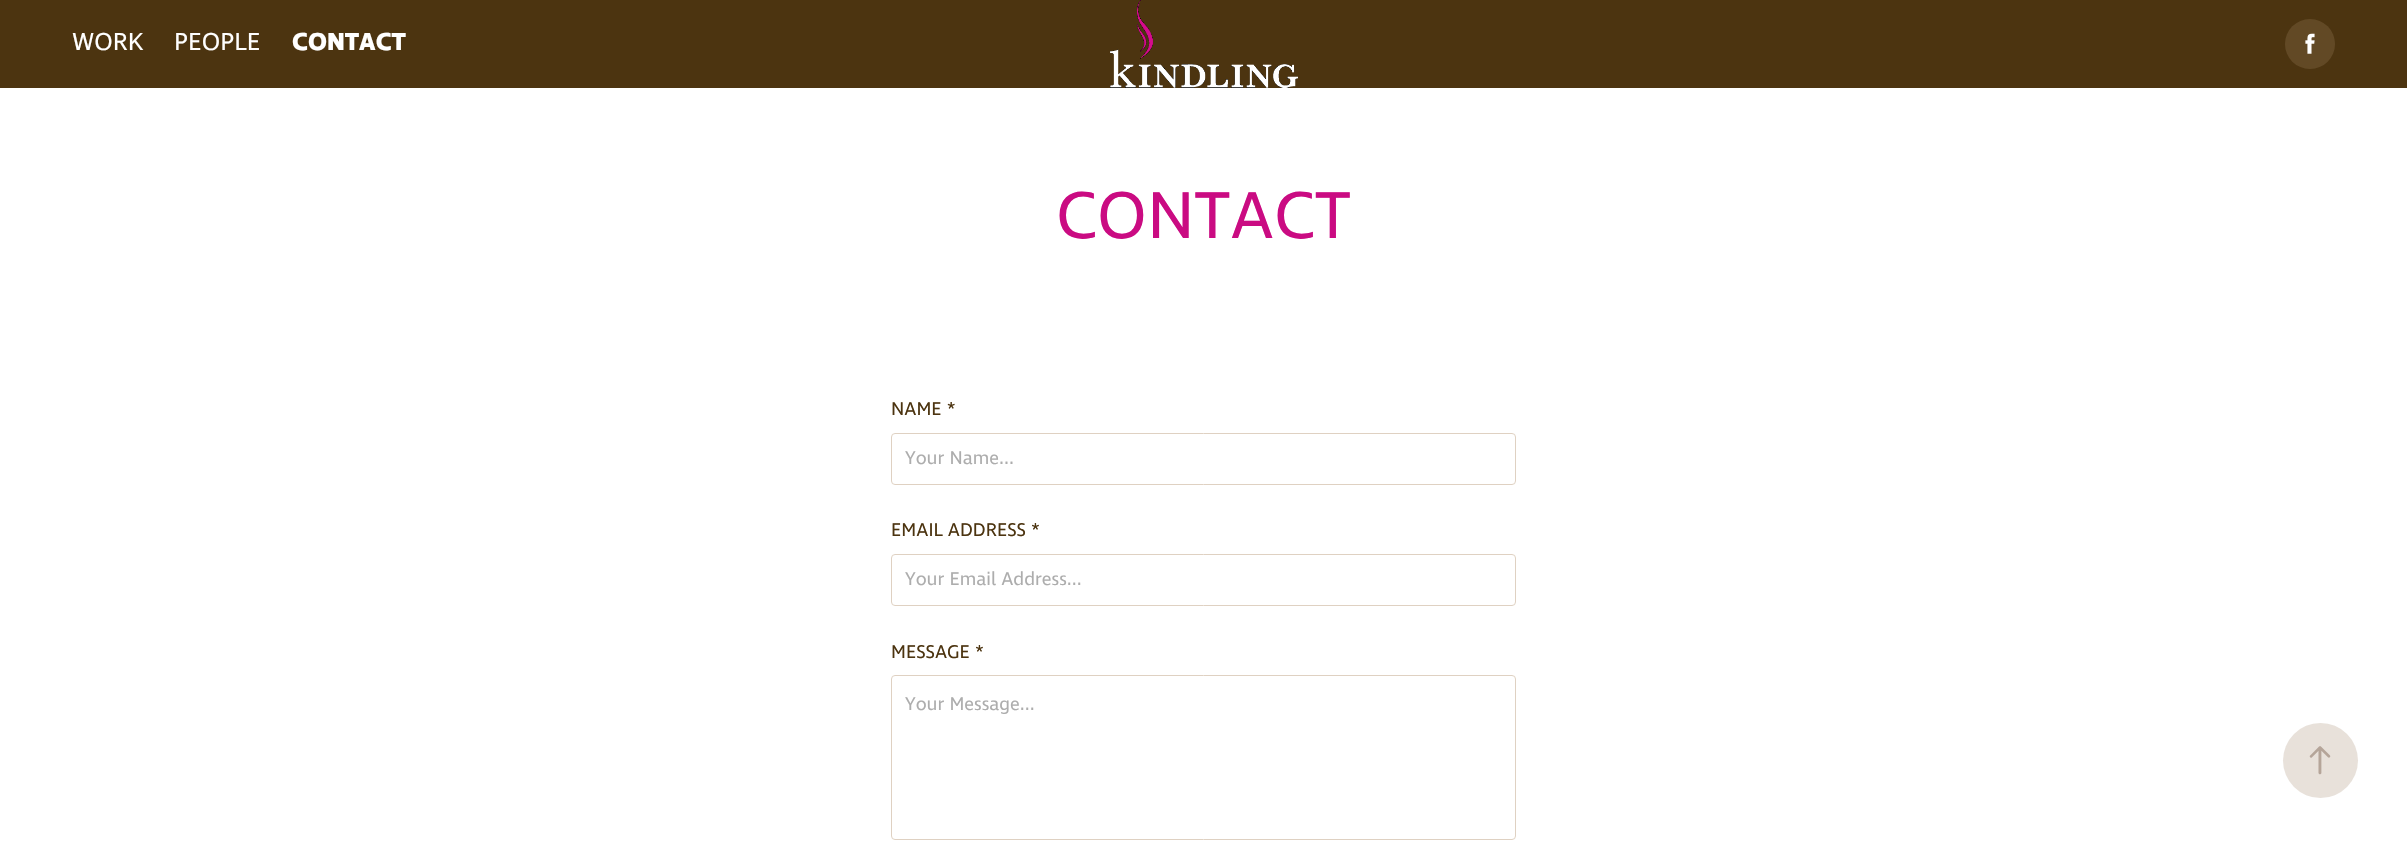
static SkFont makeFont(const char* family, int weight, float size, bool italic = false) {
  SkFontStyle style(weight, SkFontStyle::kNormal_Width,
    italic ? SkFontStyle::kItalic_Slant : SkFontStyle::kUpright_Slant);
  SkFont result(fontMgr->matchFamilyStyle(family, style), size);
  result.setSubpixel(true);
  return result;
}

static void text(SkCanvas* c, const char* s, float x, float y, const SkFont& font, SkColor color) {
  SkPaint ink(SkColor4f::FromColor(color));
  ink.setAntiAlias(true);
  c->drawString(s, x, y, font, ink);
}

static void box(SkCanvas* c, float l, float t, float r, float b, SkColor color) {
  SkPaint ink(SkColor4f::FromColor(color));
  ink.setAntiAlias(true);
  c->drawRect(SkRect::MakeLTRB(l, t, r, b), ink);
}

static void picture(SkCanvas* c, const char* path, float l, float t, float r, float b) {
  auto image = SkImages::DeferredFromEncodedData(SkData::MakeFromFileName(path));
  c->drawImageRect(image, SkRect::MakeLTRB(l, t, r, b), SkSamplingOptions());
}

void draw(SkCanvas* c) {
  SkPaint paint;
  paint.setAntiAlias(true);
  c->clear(0xffffffff);
  box(c, 0, 0, 2407, 88, 0xff4c3410);
  SkFont face1 = makeFont("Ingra", 400, 25);
  text(c, "WORK", 72, 50, face1, 0xffffffff);
  text(c, "PEOPLE", 174, 50, face1, 0xffffffff);
  SkFont face2 = makeFont("Ingra", 700, 25);
  text(c, "CONTACT", 292, 50, face2, 0xffffffff);
  picture(c, "img_01.png", 1110, 0, 1298, 88);
  paint.setColor(0xff624925);
  c->drawCircle(2310, 44, 25, paint);
  picture(c, "img_02.png", 2305, 33, 2315, 54);
  SkFont face3 = makeFont("Ingra", 400, 67.5f);
  text(c, "CONTACT", 1056, 238, face3, 0xffca0b82);
  SkFont face4 = makeFont("Ingra", 400, 18.75f);
  text(c, "NAME *", 891, 415, face4, 0xff4c3410);
  paint.setStyle(SkPaint::kStroke_Style);
  paint.setStrokeWidth(1);
  paint.setColor(0xffdfd1c2);
  c->drawRoundRect(SkRect::MakeLTRB(891.5f, 433.5f, 1515.5f, 484.5f), 3.5f, 3.5f, paint);
  text(c, "Your Name...", 905, 464, face4, 0xffadadad);
  text(c, "EMAIL ADDRESS *", 891, 536, face4, 0xff4c3410);
  c->drawRoundRect(SkRect::MakeLTRB(891.5f, 554.5f, 1515.5f, 605.5f), 3.5f, 3.5f, paint);
  text(c, "Your Email Address...", 905, 585, face4, 0xffadadad);
  text(c, "MESSAGE *", 891, 658, face4, 0xff4c3410);
  c->drawRoundRect(SkRect::MakeLTRB(891.5f, 675.5f, 1515.5f, 839.5f), 3.5f, 3.5f, paint);
  text(c, "Your Message...", 905, 710, face4, 0xffadadad);
  paint.setStyle(SkPaint::kFill_Style);
  paint.setColor(0xffe8e1da);
  c->drawCircle(2320.5f, 760.5f, 37.5f, paint);
  picture(c, "img_03.png", 2309, 746, 2331, 775);
}
